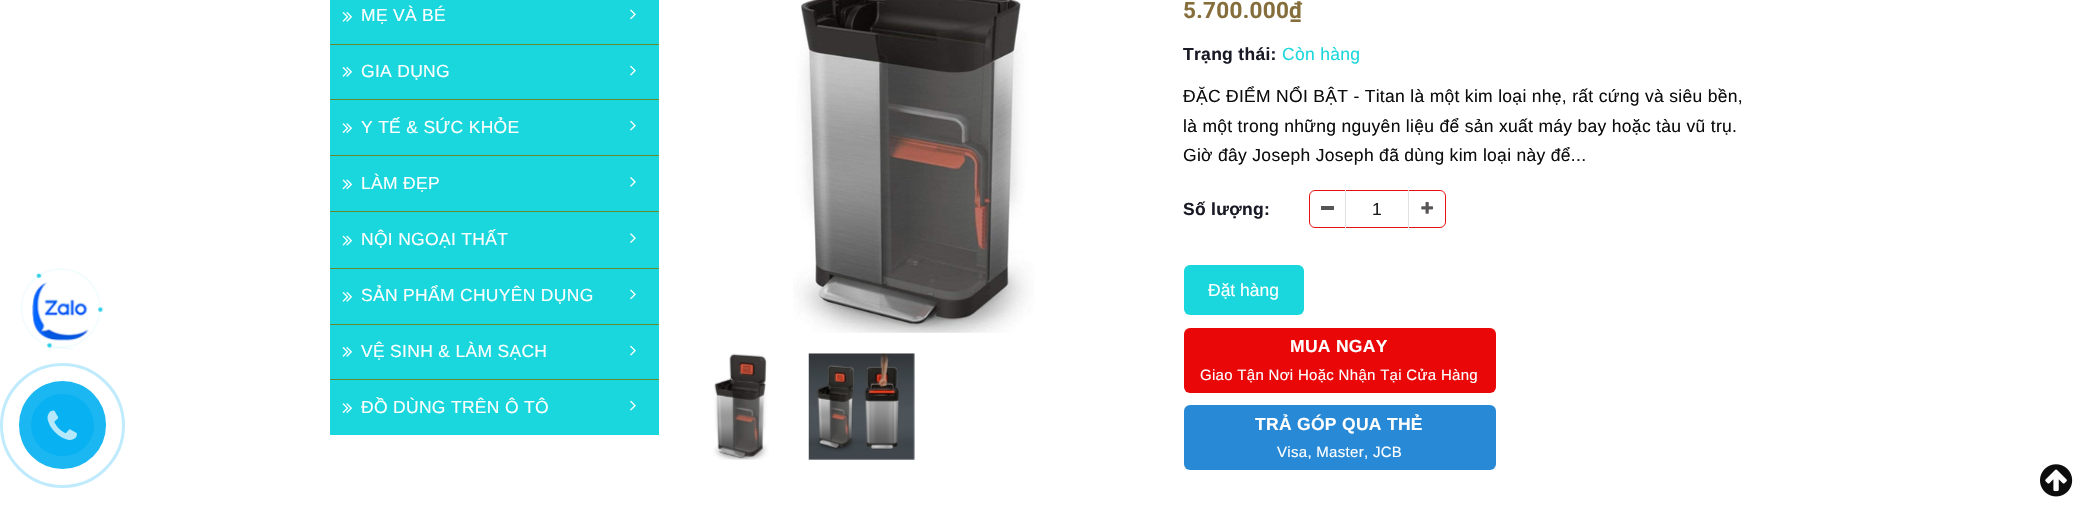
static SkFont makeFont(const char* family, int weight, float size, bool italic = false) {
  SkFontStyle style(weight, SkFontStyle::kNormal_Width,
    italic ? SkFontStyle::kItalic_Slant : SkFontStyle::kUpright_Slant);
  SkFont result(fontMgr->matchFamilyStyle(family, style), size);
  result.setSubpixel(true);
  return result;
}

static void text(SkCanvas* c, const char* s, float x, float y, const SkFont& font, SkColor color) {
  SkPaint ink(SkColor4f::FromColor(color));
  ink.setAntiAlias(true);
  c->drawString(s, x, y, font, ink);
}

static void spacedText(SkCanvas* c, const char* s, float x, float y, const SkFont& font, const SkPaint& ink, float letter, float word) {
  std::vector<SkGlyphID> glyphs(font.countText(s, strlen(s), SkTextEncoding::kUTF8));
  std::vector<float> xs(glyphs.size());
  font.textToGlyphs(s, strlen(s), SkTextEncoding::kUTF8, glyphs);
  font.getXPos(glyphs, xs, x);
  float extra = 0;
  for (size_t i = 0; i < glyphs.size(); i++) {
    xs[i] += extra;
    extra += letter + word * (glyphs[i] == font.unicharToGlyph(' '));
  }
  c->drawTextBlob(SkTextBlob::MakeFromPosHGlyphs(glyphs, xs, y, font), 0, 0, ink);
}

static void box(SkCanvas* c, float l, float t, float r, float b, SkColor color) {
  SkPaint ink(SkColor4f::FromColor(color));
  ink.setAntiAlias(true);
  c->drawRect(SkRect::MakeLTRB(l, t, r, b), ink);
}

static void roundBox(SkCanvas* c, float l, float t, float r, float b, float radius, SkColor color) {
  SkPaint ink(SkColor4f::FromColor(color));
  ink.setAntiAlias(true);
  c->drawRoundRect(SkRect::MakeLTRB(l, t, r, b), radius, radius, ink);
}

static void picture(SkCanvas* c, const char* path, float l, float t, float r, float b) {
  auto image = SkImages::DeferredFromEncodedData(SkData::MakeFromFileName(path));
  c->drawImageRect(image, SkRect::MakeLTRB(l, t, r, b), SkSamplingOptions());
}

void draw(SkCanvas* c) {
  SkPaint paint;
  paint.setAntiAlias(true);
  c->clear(0xffffffff);
  picture(c, "img_01.png", 21, 268, 104, 350);
  picture(c, "img_02.png", 32, 282, 89, 341);
  box(c, 330, 0, 659, 435, 0xff19d7dc);
  box(c, 330, 44, 659, 45, 0xff668a2d);
  picture(c, "img_03.png", 342, 12, 352, 22);
  SkFont face1 = makeFont("Liberation Sans", 400, 17.5f);
  paint.setColor(0xffffffff);
  spacedText(c, "MẸ VÀ BÉ", 361, 21, face1, paint, 0.3f, 0);
  picture(c, "img_04.png", 630, 9, 636, 20);
  box(c, 330, 99, 659, 100, 0xff668a2d);
  picture(c, "img_03.png", 342, 67, 352, 77);
  spacedText(c, "GIA DỤNG", 361, 77, face1, paint, 0.3f, 0);
  picture(c, "img_05.png", 630, 65, 636, 76);
  box(c, 330, 155, 659, 156, 0xff668a2d);
  picture(c, "img_06.png", 342, 123, 352, 133);
  spacedText(c, "Y TẾ & SỨC KHỎE", 361, 133, face1, paint, 0.3f, 0);
  picture(c, "img_05.png", 630, 120, 636, 131);
  box(c, 330, 211, 659, 212, 0xff668a2d);
  picture(c, "img_07.png", 342, 179, 352, 190);
  spacedText(c, "LÀM ĐẸP", 361, 189, face1, paint, 0.3f, 0);
  picture(c, "img_08.png", 630, 177, 636, 187);
  box(c, 330, 268, 659, 269, 0xff668a2d);
  picture(c, "img_09.png", 342, 235, 352, 246);
  spacedText(c, "NỘI NGOẠI THẤT", 361, 245, face1, paint, 0.3f, 0);
  picture(c, "img_10.png", 630, 233, 636, 243);
  box(c, 330, 324, 659, 325, 0xff668a2d);
  picture(c, "img_03.png", 342, 292, 352, 302);
  spacedText(c, "SẢN PHẨM CHUYÊN DỤNG", 361, 301, face1, paint, 0.3f, 0);
  picture(c, "img_04.png", 630, 289, 636, 300);
  box(c, 330, 379, 659, 380, 0xff668a2d);
  picture(c, "img_03.png", 342, 347, 352, 357);
  spacedText(c, "VỆ SINH & LÀM SẠCH", 361, 357, face1, paint, 0.3f, 0);
  picture(c, "img_05.png", 630, 345, 636, 356);
  picture(c, "img_06.png", 342, 403, 352, 413);
  spacedText(c, "ĐỒ DÙNG TRÊN Ô TÔ", 361, 413, face1, paint, 0.3f, 0);
  picture(c, "img_05.png", 630, 400, 636, 411);
  picture(c, "img_11.png", 793, 0, 1034, 333);
  picture(c, "img_12.png", 713, 353, 769, 460);
  picture(c, "img_13.png", 808, 353, 915, 460);
  SkFont face2 = makeFont("Roboto", 700, 22.5f);
  paint.setColor(0xff856e3c);
  spacedText(c, "5.700.000₫", 1183, 18, face2, paint, 0.3f, 0);
  SkFont face3 = makeFont("Liberation Sans", 700, 17.5f);
  paint.setColor(0xff1a1a26);
  spacedText(c, "Trạng thái:", 1183, 60, face3, paint, 0.3f, 0);
  paint.setColor(0xff19d7dc);
  spacedText(c, "Còn hàng", 1282, 60, face1, paint, 0.3f, 0);
  paint.setColor(0xff0d0d0d);
  spacedText(c, "ĐẶC ĐIỂM NỔI BẬT - Titan là một kim loại nhẹ, rất cứng và siêu bền,", 1183, 102, face1, paint, 0.3f, 0);
  spacedText(c, "là một trong những nguyên liệu để sản xuất máy bay hoặc tàu vũ trụ.", 1183, 132, face1, paint, 0.3f, 0);
  spacedText(c, "Giờ đây Joseph Joseph đã dùng kim loại này để...", 1183, 161, face1, paint, 0.3f, 0);
  paint.setColor(0xff1a1a26);
  spacedText(c, "Số lượng:", 1183, 215, face3, paint, 0.3f, 0);
  paint.setStyle(SkPaint::kStroke_Style);
  paint.setStrokeWidth(1);
  paint.setColor(0xffe61111);
  c->drawRoundRect(SkRect::MakeLTRB(1309.5f, 190.5f, 1445.5f, 227.5f), 5.5f, 5.5f, paint);
  box(c, 1345, 190, 1346, 228, 0xffe1e1e1);
  box(c, 1321, 206, 1334, 210, 0xff575454);
  paint.setStyle(SkPaint::kFill_Style);
  paint.setColor(0xff1c1c1c);
  spacedText(c, "1", 1372, 215, face1, paint, 0.3f, 0);
  box(c, 1408, 190, 1409, 228, 0xffe1e1e1);
  picture(c, "img_14.png", 1421, 201, 1434, 214);
  roundBox(c, 1184, 265, 1304, 315, 6, 0xff19d7dc);
  text(c, "Đặt hàng", 1208, 296, face1, 0xffffffff);
  roundBox(c, 1184, 328, 1496, 393, 6, 0xffe90707);
  paint.setColor(0xffffffff);
  spacedText(c, "MUA NGAY", 1290, 352, face3, paint, 0.3f, 0);
  SkFont face4 = makeFont("Liberation Sans", 400, 15);
  spacedText(c, "Giao Tận Nơi Hoặc Nhận Tại Cửa Hàng", 1200, 380, face4, paint, 0.3f, 0);
  roundBox(c, 1184, 405, 1496, 470, 6, 0xff288ad6);
  spacedText(c, "TRẢ GÓP QUA THẺ", 1255, 430, face3, paint, 0.3f, 0);
  spacedText(c, "Visa, Master, JCB", 1277, 457, face4, paint, 0.3f, 0);
  paint.setStyle(SkPaint::kStroke_Style);
  paint.setStrokeWidth(3);
  paint.setColor(0xffbfebfc);
  c->drawCircle(62.5f, 425.5f, 61, paint);
  roundBox(c, 19, 381, 106, 469, 43.5f, 0xff1ab7f3);
  roundBox(c, 31, 394, 94, 456, 31, 0xff08b1f2);
  picture(c, "img_15.png", 47, 410, 77, 440);
  picture(c, "img_16.png", 2040, 464, 2073, 497);
}
